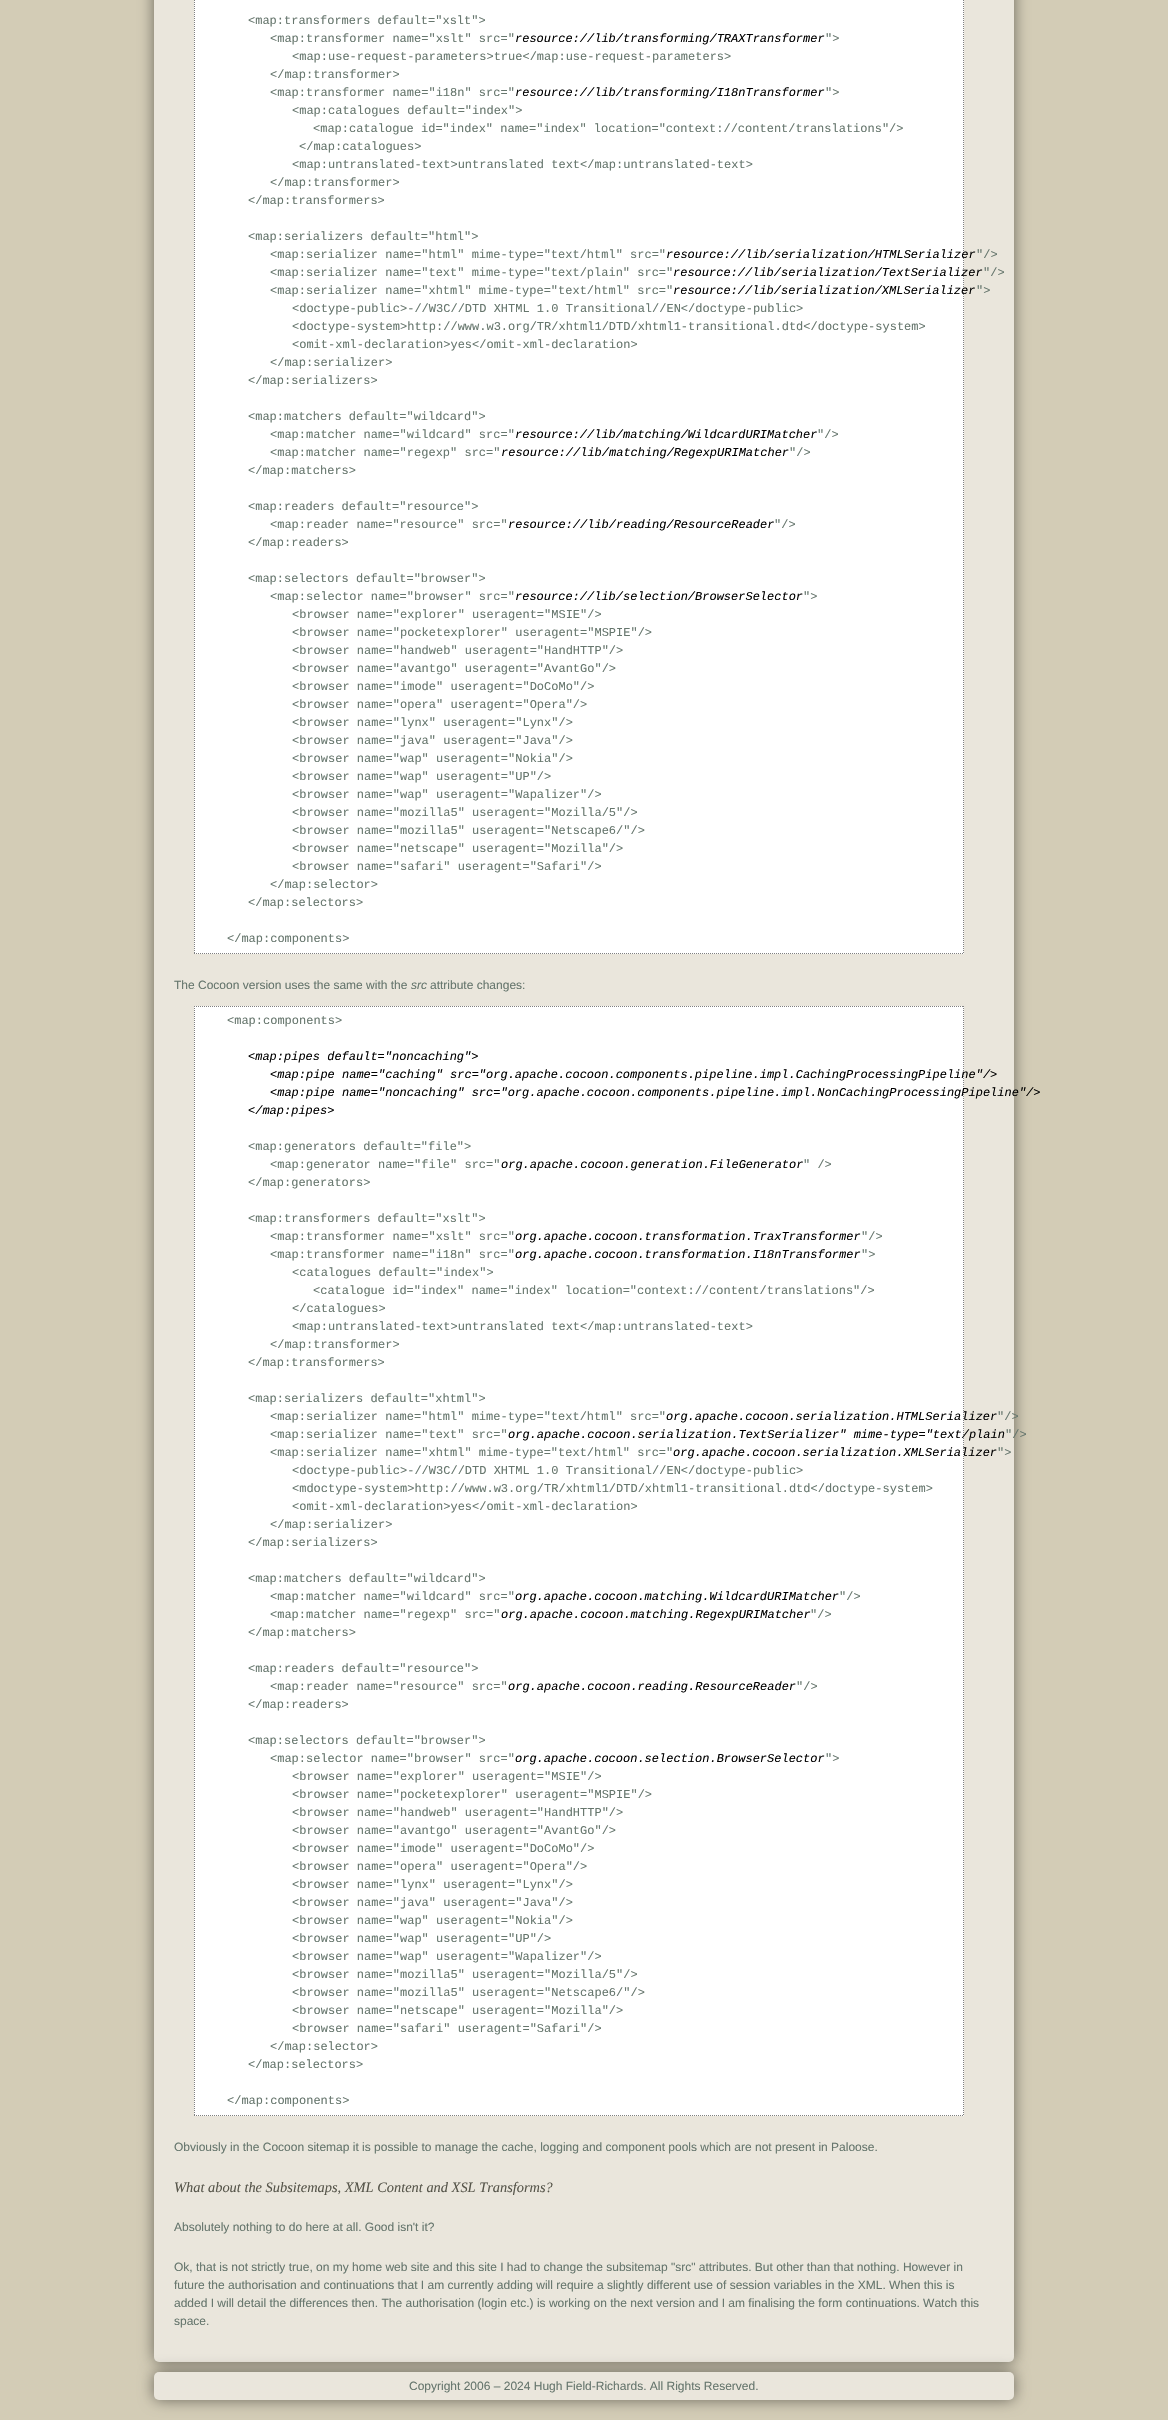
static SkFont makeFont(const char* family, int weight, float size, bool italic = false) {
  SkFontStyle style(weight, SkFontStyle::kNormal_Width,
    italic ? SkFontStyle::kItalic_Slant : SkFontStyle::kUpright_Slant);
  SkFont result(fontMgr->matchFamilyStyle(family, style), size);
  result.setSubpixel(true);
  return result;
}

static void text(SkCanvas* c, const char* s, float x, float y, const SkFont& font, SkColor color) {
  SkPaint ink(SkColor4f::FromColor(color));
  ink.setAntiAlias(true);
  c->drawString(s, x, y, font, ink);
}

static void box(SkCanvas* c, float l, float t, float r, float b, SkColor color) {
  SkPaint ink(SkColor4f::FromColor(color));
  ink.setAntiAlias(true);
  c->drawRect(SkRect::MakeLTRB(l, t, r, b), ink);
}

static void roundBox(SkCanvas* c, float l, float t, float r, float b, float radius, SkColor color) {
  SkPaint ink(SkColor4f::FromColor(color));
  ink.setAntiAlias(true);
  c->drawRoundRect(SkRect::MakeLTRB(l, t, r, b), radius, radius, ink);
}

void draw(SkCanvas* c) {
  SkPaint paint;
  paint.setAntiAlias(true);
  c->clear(0xffd3ccb6);
  paint.setColor(0x80000000);
  paint.setMaskFilter(SkMaskFilter::MakeBlur(kNormal_SkBlurStyle, 7.5f));
  c->drawRoundRect(SkRect::MakeLTRB(154, -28, 1014, 2362), 5, 5, paint);
  paint.setMaskFilter(nullptr);
  roundBox(c, 154, -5, 1014, 2362, 5, 0xffeae6dc);
  box(c, 194, 0, 964, 954, 0xffffffff);
  paint.setStyle(SkPaint::kStroke_Style);
  paint.setStrokeWidth(1);
  paint.setColor(0xff808080);
  paint.setPathEffect(SkDashPathEffect::Make({{1, 1}}, 0));
  c->drawPath(SkPathBuilder().moveTo(963.5f, -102).lineTo(963.5f, 954).detach(), paint);
  paint.setPathEffect(nullptr);
  paint.setPathEffect(SkDashPathEffect::Make({{1, 1}}, 0));
  c->drawPath(SkPathBuilder().moveTo(194, 953.5f).lineTo(964, 953.5f).detach(), paint);
  paint.setPathEffect(nullptr);
  paint.setPathEffect(SkDashPathEffect::Make({{1, 1}}, 0));
  c->drawPath(SkPathBuilder().moveTo(194.5f, -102).lineTo(194.5f, 954).detach(), paint);
  paint.setPathEffect(nullptr);
  SkFont face1 = makeFont("Liberation Mono", 400, 12);
  text(c, "<map:transformers default=\"xslt\">", 248, 24, face1, 0xff66766d);
  text(c, "<map:transformer name=\"xslt\" src=\"", 270, 42, face1, 0xff66766d);
  SkFont face2 = makeFont("Liberation Mono", 400, 12, true);
  text(c, "resource://lib/transforming/TRAXTransformer", 515, 42, face2, 0xff000000);
  text(c, "\">", 825, 42, face1, 0xff66766d);
  text(c, "<map:use-request-parameters>true</map:use-request-parameters>", 292, 60, face1, 0xff66766d);
  text(c, "</map:transformer>", 270, 78, face1, 0xff66766d);
  text(c, "<map:transformer name=\"i18n\" src=\"", 270, 96, face1, 0xff66766d);
  text(c, "resource://lib/transforming/I18nTransformer", 515, 96, face2, 0xff000000);
  text(c, "\">", 825, 96, face1, 0xff66766d);
  text(c, "<map:catalogues default=\"index\">", 292, 114, face1, 0xff66766d);
  text(c, "<map:catalogue id=\"index\" name=\"index\" location=\"context://content/translations\"/>", 313, 132, face1, 0xff66766d);
  text(c, "</map:catalogues>", 299, 150, face1, 0xff66766d);
  text(c, "<map:untranslated-text>untranslated text</map:untranslated-text>", 292, 168, face1, 0xff66766d);
  text(c, "</map:transformer>", 270, 186, face1, 0xff66766d);
  text(c, "</map:transformers>", 248, 204, face1, 0xff66766d);
  text(c, "<map:serializers default=\"html\">", 248, 240, face1, 0xff66766d);
  text(c, "<map:serializer name=\"html\" mime-type=\"text/html\" src=\"", 270, 258, face1, 0xff66766d);
  text(c, "resource://lib/serialization/HTMLSerializer", 666, 258, face2, 0xff000000);
  text(c, "\"/>", 976, 258, face1, 0xff66766d);
  text(c, "<map:serializer name=\"text\" mime-type=\"text/plain\" src=\"", 270, 276, face1, 0xff66766d);
  text(c, "resource://lib/serialization/TextSerializer", 673, 276, face2, 0xff000000);
  text(c, "\"/>", 983, 276, face1, 0xff66766d);
  text(c, "<map:serializer name=\"xhtml\" mime-type=\"text/html\" src=\"", 270, 294, face1, 0xff66766d);
  text(c, "resource://lib/serialization/XMLSerializer", 673, 294, face2, 0xff000000);
  text(c, "\">", 976, 294, face1, 0xff66766d);
  text(c, "<doctype-public>-//W3C//DTD XHTML 1.0 Transitional//EN</doctype-public>", 292, 312, face1, 0xff66766d);
  text(c, "<doctype-system>http://www.w3.org/TR/xhtml1/DTD/xhtml1-transitional.dtd</doctype-system>", 292, 330, face1, 0xff66766d);
  text(c, "<omit-xml-declaration>yes</omit-xml-declaration>", 292, 348, face1, 0xff66766d);
  text(c, "</map:serializer>", 270, 366, face1, 0xff66766d);
  text(c, "</map:serializers>", 248, 384, face1, 0xff66766d);
  text(c, "<map:matchers default=\"wildcard\">", 248, 420, face1, 0xff66766d);
  text(c, "<map:matcher name=\"wildcard\" src=\"", 270, 438, face1, 0xff66766d);
  text(c, "resource://lib/matching/WildcardURIMatcher", 515, 438, face2, 0xff000000);
  text(c, "\"/>", 817, 438, face1, 0xff66766d);
  text(c, "<map:matcher name=\"regexp\" src=\"", 270, 456, face1, 0xff66766d);
  text(c, "resource://lib/matching/RegexpURIMatcher", 501, 456, face2, 0xff000000);
  text(c, "\"/>", 789, 456, face1, 0xff66766d);
  text(c, "</map:matchers>", 248, 474, face1, 0xff66766d);
  text(c, "<map:readers default=\"resource\">", 248, 510, face1, 0xff66766d);
  text(c, "<map:reader name=\"resource\" src=\"", 270, 528, face1, 0xff66766d);
  text(c, "resource://lib/reading/ResourceReader", 508, 528, face2, 0xff000000);
  text(c, "\"/>", 774, 528, face1, 0xff66766d);
  text(c, "</map:readers>", 248, 546, face1, 0xff66766d);
  text(c, "<map:selectors default=\"browser\">", 248, 582, face1, 0xff66766d);
  text(c, "<map:selector name=\"browser\" src=\"", 270, 600, face1, 0xff66766d);
  text(c, "resource://lib/selection/BrowserSelector", 515, 600, face2, 0xff000000);
  text(c, "\">", 803, 600, face1, 0xff66766d);
  text(c, "<browser name=\"explorer\" useragent=\"MSIE\"/>", 292, 618, face1, 0xff66766d);
  text(c, "<browser name=\"pocketexplorer\" useragent=\"MSPIE\"/>", 292, 636, face1, 0xff66766d);
  text(c, "<browser name=\"handweb\" useragent=\"HandHTTP\"/>", 292, 654, face1, 0xff66766d);
  text(c, "<browser name=\"avantgo\" useragent=\"AvantGo\"/>", 292, 672, face1, 0xff66766d);
  text(c, "<browser name=\"imode\" useragent=\"DoCoMo\"/>", 292, 690, face1, 0xff66766d);
  text(c, "<browser name=\"opera\" useragent=\"Opera\"/>", 292, 708, face1, 0xff66766d);
  text(c, "<browser name=\"lynx\" useragent=\"Lynx\"/>", 292, 726, face1, 0xff66766d);
  text(c, "<browser name=\"java\" useragent=\"Java\"/>", 292, 744, face1, 0xff66766d);
  text(c, "<browser name=\"wap\" useragent=\"Nokia\"/>", 292, 762, face1, 0xff66766d);
  text(c, "<browser name=\"wap\" useragent=\"UP\"/>", 292, 780, face1, 0xff66766d);
  text(c, "<browser name=\"wap\" useragent=\"Wapalizer\"/>", 292, 798, face1, 0xff66766d);
  text(c, "<browser name=\"mozilla5\" useragent=\"Mozilla/5\"/>", 292, 816, face1, 0xff66766d);
  text(c, "<browser name=\"mozilla5\" useragent=\"Netscape6/\"/>", 292, 834, face1, 0xff66766d);
  text(c, "<browser name=\"netscape\" useragent=\"Mozilla\"/>", 292, 852, face1, 0xff66766d);
  text(c, "<browser name=\"safari\" useragent=\"Safari\"/>", 292, 870, face1, 0xff66766d);
  text(c, "</map:selector>", 270, 888, face1, 0xff66766d);
  text(c, "</map:selectors>", 248, 906, face1, 0xff66766d);
  text(c, "</map:components>", 227, 942, face1, 0xff66766d);
  SkFont face3 = makeFont("Liberation Sans", 400, 12);
  text(c, "The Cocoon version uses the same with the", 174, 989, face3, 0xff66766d);
  SkFont face4 = makeFont("Liberation Sans", 400, 12, true);
  text(c, "src", 411, 989, face4, 0xff66766d);
  text(c, "attribute changes:", 430, 989, face3, 0xff66766d);
  box(c, 194, 1006, 964, 2116, 0xffffffff);
  paint.setPathEffect(SkDashPathEffect::Make({{1, 1}}, 0));
  c->drawPath(SkPathBuilder().moveTo(194, 1006.5f).lineTo(964, 1006.5f).detach(), paint);
  paint.setPathEffect(nullptr);
  paint.setPathEffect(SkDashPathEffect::Make({{1, 1}}, 0));
  c->drawPath(SkPathBuilder().moveTo(963.5f, 1006).lineTo(963.5f, 2116).detach(), paint);
  paint.setPathEffect(nullptr);
  paint.setPathEffect(SkDashPathEffect::Make({{1, 1}}, 0));
  c->drawPath(SkPathBuilder().moveTo(194, 2115.5f).lineTo(964, 2115.5f).detach(), paint);
  paint.setPathEffect(nullptr);
  paint.setPathEffect(SkDashPathEffect::Make({{1, 1}}, 0));
  c->drawPath(SkPathBuilder().moveTo(194.5f, 1006).lineTo(194.5f, 2116).detach(), paint);
  paint.setPathEffect(nullptr);
  text(c, "<map:components>", 227, 1024, face1, 0xff66766d);
  text(c, "<map:pipes default=\"noncaching\">", 248, 1060, face2, 0xff000000);
  text(c, "<map:pipe name=\"caching\" src=\"org.apache.cocoon.components.pipeline.impl.CachingProcessingPipeline\"/>", 270, 1078, face2, 0xff000000);
  text(c, "<map:pipe name=\"noncaching\" src=\"org.apache.cocoon.components.pipeline.impl.NonCachingProcessingPipeline\"/>", 270, 1096, face2, 0xff000000);
  text(c, "</map:pipes>", 248, 1114, face2, 0xff000000);
  text(c, "<map:generators default=\"file\">", 248, 1150, face1, 0xff66766d);
  text(c, "<map:generator name=\"file\" src=\"", 270, 1168, face1, 0xff66766d);
  text(c, "org.apache.cocoon.generation.FileGenerator", 501, 1168, face2, 0xff000000);
  text(c, "\" />", 803, 1168, face1, 0xff66766d);
  text(c, "</map:generators>", 248, 1186, face1, 0xff66766d);
  text(c, "<map:transformers default=\"xslt\">", 248, 1222, face1, 0xff66766d);
  text(c, "<map:transformer name=\"xslt\" src=\"", 270, 1240, face1, 0xff66766d);
  text(c, "org.apache.cocoon.transformation.TraxTransformer", 515, 1240, face2, 0xff000000);
  text(c, "\"/>", 861, 1240, face1, 0xff66766d);
  text(c, "<map:transformer name=\"i18n\" src=\"", 270, 1258, face1, 0xff66766d);
  text(c, "org.apache.cocoon.transformation.I18nTransformer", 515, 1258, face2, 0xff000000);
  text(c, "\">", 861, 1258, face1, 0xff66766d);
  text(c, "<catalogues default=\"index\">", 292, 1276, face1, 0xff66766d);
  text(c, "<catalogue id=\"index\" name=\"index\" location=\"context://content/translations\"/>", 313, 1294, face1, 0xff66766d);
  text(c, "</catalogues>", 292, 1312, face1, 0xff66766d);
  text(c, "<map:untranslated-text>untranslated text</map:untranslated-text>", 292, 1330, face1, 0xff66766d);
  text(c, "</map:transformer>", 270, 1348, face1, 0xff66766d);
  text(c, "</map:transformers>", 248, 1366, face1, 0xff66766d);
  text(c, "<map:serializers default=\"xhtml\">", 248, 1402, face1, 0xff66766d);
  text(c, "<map:serializer name=\"html\" mime-type=\"text/html\" src=\"", 270, 1420, face1, 0xff66766d);
  text(c, "org.apache.cocoon.serialization.HTMLSerializer", 666, 1420, face2, 0xff000000);
  text(c, "\"/>", 997, 1420, face1, 0xff66766d);
  text(c, "<map:serializer name=\"text\" src=\"", 270, 1438, face1, 0xff66766d);
  text(c, "org.apache.cocoon.serialization.TextSerializer\" mime-type=\"text/plain", 508, 1438, face2, 0xff000000);
  text(c, "\"/>", 1005, 1438, face1, 0xff66766d);
  text(c, "<map:serializer name=\"xhtml\" mime-type=\"text/html\" src=\"", 270, 1456, face1, 0xff66766d);
  text(c, "org.apache.cocoon.serialization.XMLSerializer", 673, 1456, face2, 0xff000000);
  text(c, "\">", 997, 1456, face1, 0xff66766d);
  text(c, "<doctype-public>-//W3C//DTD XHTML 1.0 Transitional//EN</doctype-public>", 292, 1474, face1, 0xff66766d);
  text(c, "<mdoctype-system>http://www.w3.org/TR/xhtml1/DTD/xhtml1-transitional.dtd</doctype-system>", 292, 1492, face1, 0xff66766d);
  text(c, "<omit-xml-declaration>yes</omit-xml-declaration>", 292, 1510, face1, 0xff66766d);
  text(c, "</map:serializer>", 270, 1528, face1, 0xff66766d);
  text(c, "</map:serializers>", 248, 1546, face1, 0xff66766d);
  text(c, "<map:matchers default=\"wildcard\">", 248, 1582, face1, 0xff66766d);
  text(c, "<map:matcher name=\"wildcard\" src=\"", 270, 1600, face1, 0xff66766d);
  text(c, "org.apache.cocoon.matching.WildcardURIMatcher", 515, 1600, face2, 0xff000000);
  text(c, "\"/>", 839, 1600, face1, 0xff66766d);
  text(c, "<map:matcher name=\"regexp\" src=\"", 270, 1618, face1, 0xff66766d);
  text(c, "org.apache.cocoon.matching.RegexpURIMatcher", 501, 1618, face2, 0xff000000);
  text(c, "\"/>", 810, 1618, face1, 0xff66766d);
  text(c, "</map:matchers>", 248, 1636, face1, 0xff66766d);
  text(c, "<map:readers default=\"resource\">", 248, 1672, face1, 0xff66766d);
  text(c, "<map:reader name=\"resource\" src=\"", 270, 1690, face1, 0xff66766d);
  text(c, "org.apache.cocoon.reading.ResourceReader", 508, 1690, face2, 0xff000000);
  text(c, "\"/>", 796, 1690, face1, 0xff66766d);
  text(c, "</map:readers>", 248, 1708, face1, 0xff66766d);
  text(c, "<map:selectors default=\"browser\">", 248, 1744, face1, 0xff66766d);
  text(c, "<map:selector name=\"browser\" src=\"", 270, 1762, face1, 0xff66766d);
  text(c, "org.apache.cocoon.selection.BrowserSelector", 515, 1762, face2, 0xff000000);
  text(c, "\">", 825, 1762, face1, 0xff66766d);
  text(c, "<browser name=\"explorer\" useragent=\"MSIE\"/>", 292, 1780, face1, 0xff66766d);
  text(c, "<browser name=\"pocketexplorer\" useragent=\"MSPIE\"/>", 292, 1798, face1, 0xff66766d);
  text(c, "<browser name=\"handweb\" useragent=\"HandHTTP\"/>", 292, 1816, face1, 0xff66766d);
  text(c, "<browser name=\"avantgo\" useragent=\"AvantGo\"/>", 292, 1834, face1, 0xff66766d);
  text(c, "<browser name=\"imode\" useragent=\"DoCoMo\"/>", 292, 1852, face1, 0xff66766d);
  text(c, "<browser name=\"opera\" useragent=\"Opera\"/>", 292, 1870, face1, 0xff66766d);
  text(c, "<browser name=\"lynx\" useragent=\"Lynx\"/>", 292, 1888, face1, 0xff66766d);
  text(c, "<browser name=\"java\" useragent=\"Java\"/>", 292, 1906, face1, 0xff66766d);
  text(c, "<browser name=\"wap\" useragent=\"Nokia\"/>", 292, 1924, face1, 0xff66766d);
  text(c, "<browser name=\"wap\" useragent=\"UP\"/>", 292, 1942, face1, 0xff66766d);
  text(c, "<browser name=\"wap\" useragent=\"Wapalizer\"/>", 292, 1960, face1, 0xff66766d);
  text(c, "<browser name=\"mozilla5\" useragent=\"Mozilla/5\"/>", 292, 1978, face1, 0xff66766d);
  text(c, "<browser name=\"mozilla5\" useragent=\"Netscape6/\"/>", 292, 1996, face1, 0xff66766d);
  text(c, "<browser name=\"netscape\" useragent=\"Mozilla\"/>", 292, 2014, face1, 0xff66766d);
  text(c, "<browser name=\"safari\" useragent=\"Safari\"/>", 292, 2032, face1, 0xff66766d);
  text(c, "</map:selector>", 270, 2050, face1, 0xff66766d);
  text(c, "</map:selectors>", 248, 2068, face1, 0xff66766d);
  text(c, "</map:components>", 227, 2104, face1, 0xff66766d);
  text(c, "Obviously in the Cocoon sitemap it is possible to manage the cache, logging and component pools which are not present in Paloose.", 174, 2151, face3, 0xff66766d);
  SkFont face5 = makeFont("Liberation Serif", 400, 14.4f, true);
  text(c, "What about the Subsitemaps, XML Content and XSL Transforms?", 174, 2192, face5, 0xff56554a);
  text(c, "Absolutely nothing to do here at all. Good isn't it?", 174, 2231, face3, 0xff66766d);
  text(c, "Ok, that is not strictly true, on my home web site and this site I had to change the subsitemap \"src\" attributes. But other than that nothing. However in", 174, 2271, face3, 0xff66766d);
  text(c, "future the authorisation and continuations that I am currently adding will require a slightly different use of session variables in the XML. When this is", 174, 2289, face3, 0xff66766d);
  text(c, "added I will detail the differences then. The authorisation (login etc.) is working on the next version and I am finalising the form continuations. Watch this", 174, 2307, face3, 0xff66766d);
  text(c, "space.", 174, 2325, face3, 0xff66766d);
  paint.setStyle(SkPaint::kFill_Style);
  paint.setColor(0x80000000);
  paint.setMaskFilter(SkMaskFilter::MakeBlur(kNormal_SkBlurStyle, 7.5f));
  c->drawRoundRect(SkRect::MakeLTRB(154, 2372, 1014, 2400), 5, 5, paint);
  paint.setMaskFilter(nullptr);
  roundBox(c, 154, 2372, 1014, 2400, 5, 0xffeae6dc);
  text(c, "Copyright 2006 – 2024 Hugh Field-Richards. All Rights Reserved.", 409, 2390, face3, 0xff66766d);
}
